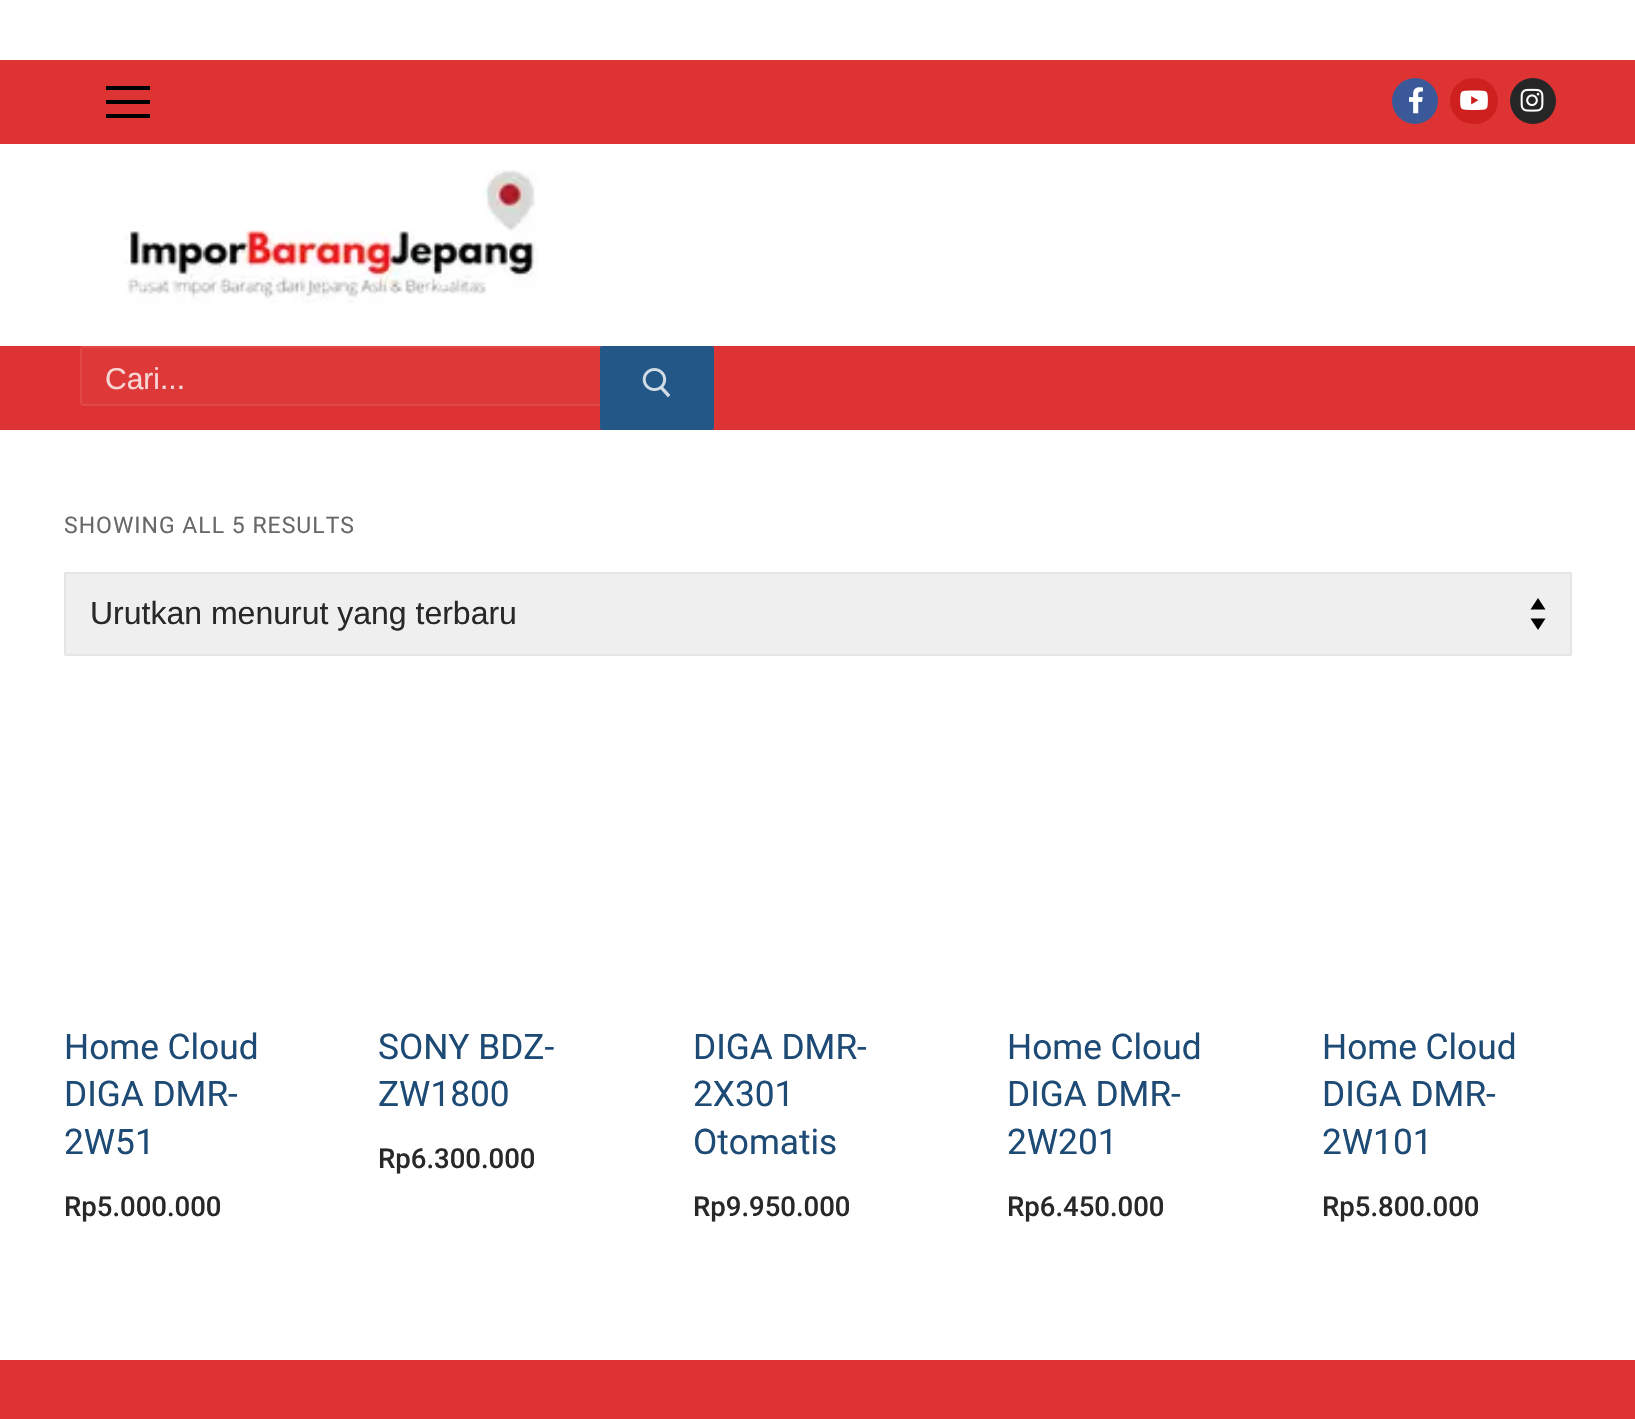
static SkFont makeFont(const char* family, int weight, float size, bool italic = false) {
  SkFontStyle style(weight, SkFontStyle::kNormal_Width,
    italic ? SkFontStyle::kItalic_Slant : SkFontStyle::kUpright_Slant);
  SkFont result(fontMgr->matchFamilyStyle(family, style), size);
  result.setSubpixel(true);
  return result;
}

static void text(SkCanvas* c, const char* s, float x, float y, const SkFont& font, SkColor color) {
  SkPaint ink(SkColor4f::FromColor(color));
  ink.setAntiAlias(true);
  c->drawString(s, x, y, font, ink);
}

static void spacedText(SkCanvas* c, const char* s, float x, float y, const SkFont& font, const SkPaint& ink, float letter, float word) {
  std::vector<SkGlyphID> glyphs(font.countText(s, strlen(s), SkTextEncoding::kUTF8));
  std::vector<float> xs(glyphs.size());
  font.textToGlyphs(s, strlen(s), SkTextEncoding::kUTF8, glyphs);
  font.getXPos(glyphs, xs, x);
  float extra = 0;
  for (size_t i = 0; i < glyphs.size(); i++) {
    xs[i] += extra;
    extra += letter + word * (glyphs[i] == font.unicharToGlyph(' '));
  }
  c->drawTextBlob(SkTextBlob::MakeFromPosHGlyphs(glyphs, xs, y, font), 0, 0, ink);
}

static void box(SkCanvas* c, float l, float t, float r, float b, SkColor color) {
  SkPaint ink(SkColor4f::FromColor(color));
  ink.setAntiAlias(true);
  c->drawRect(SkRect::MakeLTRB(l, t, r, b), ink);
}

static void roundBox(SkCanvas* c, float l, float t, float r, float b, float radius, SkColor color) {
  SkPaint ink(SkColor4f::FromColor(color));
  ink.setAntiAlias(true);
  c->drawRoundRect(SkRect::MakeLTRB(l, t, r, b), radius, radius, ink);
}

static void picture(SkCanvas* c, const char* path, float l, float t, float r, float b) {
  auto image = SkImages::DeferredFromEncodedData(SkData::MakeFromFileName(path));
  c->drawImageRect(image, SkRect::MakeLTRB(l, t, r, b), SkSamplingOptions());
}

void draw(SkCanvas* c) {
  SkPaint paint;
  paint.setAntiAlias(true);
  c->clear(0xffffffff);
  box(c, 0, 60, 1635, 144, 0xffdd3333);
  box(c, 106, 100, 150, 104, 0xff000000);
  box(c, 106, 86, 150, 90, 0xff000000);
  box(c, 106, 114, 150, 118, 0xff000000);
  paint.setColor(0xff3b5998);
  c->drawCircle(1415, 101, 23, paint);
  picture(c, "img_01.png", 1409, 87, 1423, 114);
  roundBox(c, 1450, 78, 1498, 124, 23, 0xffcd201f);
  picture(c, "img_02.png", 1460, 90, 1488, 110);
  paint.setColor(0xff262626);
  c->drawCircle(1533, 101, 23, paint);
  picture(c, "img_03.png", 1520, 88, 1544, 112);
  picture(c, "img_04.png", 124, 170, 538, 303);
  box(c, 0, 346, 1635, 430, 0xffdd3333);
  paint.setColor(0xffde3939);
  c->drawRoundRect(SkRect::MakeLTRB(81, 347, 679, 405), 3, 3, paint);
  paint.setStyle(SkPaint::kStroke_Style);
  paint.setStrokeWidth(2);
  paint.setColor(0xffe14949);
  c->drawRoundRect(SkRect::MakeLTRB(81, 347, 679, 405), 3, 3, paint);
  SkFont face1 = makeFont("Liberation Sans", 400, 30);
  text(c, "Cari...", 105, 389, face1, 0xfff8d5d5);
  roundBox(c, 600, 346, 714, 430, 2, 0xff235787);
  picture(c, "img_05.png", 642, 368, 671, 398);
  SkFont face2 = makeFont("Roboto", 400, 23);
  paint.setStyle(SkPaint::kFill_Style);
  paint.setColor(0xff686868);
  spacedText(c, "SHOWING ALL 5 RESULTS", 64, 533, face2, paint, 1, 0);
  roundBox(c, 64, 572, 1572, 656, 2, 0xffefefef);
  paint.setColor(0xff000000);
  c->drawPath(SkPathBuilder().moveTo(1538, 598).lineTo(1530.5f, 609.5f).lineTo(1545.5f, 609.5f).close().moveTo(1538, 630).lineTo(1545.5f, 618.5f).lineTo(1530.5f, 618.5f).close().detach(), paint);
  paint.setStyle(SkPaint::kStroke_Style);
  paint.setColor(0xffe5e5e5);
  c->drawRoundRect(SkRect::MakeLTRB(65, 573, 1571, 655), 1, 1, paint);
  SkFont face3 = makeFont("Liberation Sans", 400, 32);
  text(c, "Urutkan menurut yang terbaru", 90, 624, face3, 0xff282828);
  SkFont face4 = makeFont("Roboto", 400, 35.25f);
  text(c, "Home Cloud", 64, 1059, face4, 0xff1e4b75);
  text(c, "DIGA DMR-", 64, 1106, face4, 0xff1e4b75);
  text(c, "2W51", 64, 1154, face4, 0xff1e4b75);
  SkFont face5 = makeFont("Roboto", 500, 27.5f);
  text(c, "Rp5.000.000", 64, 1216, face5, 0xff282828);
  text(c, "SONY BDZ-", 378, 1059, face4, 0xff1e4b75);
  text(c, "ZW1800", 378, 1106, face4, 0xff1e4b75);
  text(c, "Rp6.300.000", 378, 1168, face5, 0xff282828);
  text(c, "DIGA DMR-", 693, 1059, face4, 0xff1e4b75);
  text(c, "2X301", 693, 1106, face4, 0xff1e4b75);
  text(c, "Otomatis", 693, 1154, face4, 0xff1e4b75);
  text(c, "Rp9.950.000", 693, 1216, face5, 0xff282828);
  text(c, "Home Cloud", 1007, 1059, face4, 0xff1e4b75);
  text(c, "DIGA DMR-", 1007, 1106, face4, 0xff1e4b75);
  text(c, "2W201", 1007, 1154, face4, 0xff1e4b75);
  text(c, "Rp6.450.000", 1007, 1216, face5, 0xff282828);
  text(c, "Home Cloud", 1322, 1059, face4, 0xff1e4b75);
  text(c, "DIGA DMR-", 1322, 1106, face4, 0xff1e4b75);
  text(c, "2W101", 1322, 1154, face4, 0xff1e4b75);
  text(c, "Rp5.800.000", 1322, 1216, face5, 0xff282828);
  box(c, 0, 1360, 1635, 1419, 0xffdd3333);
}
